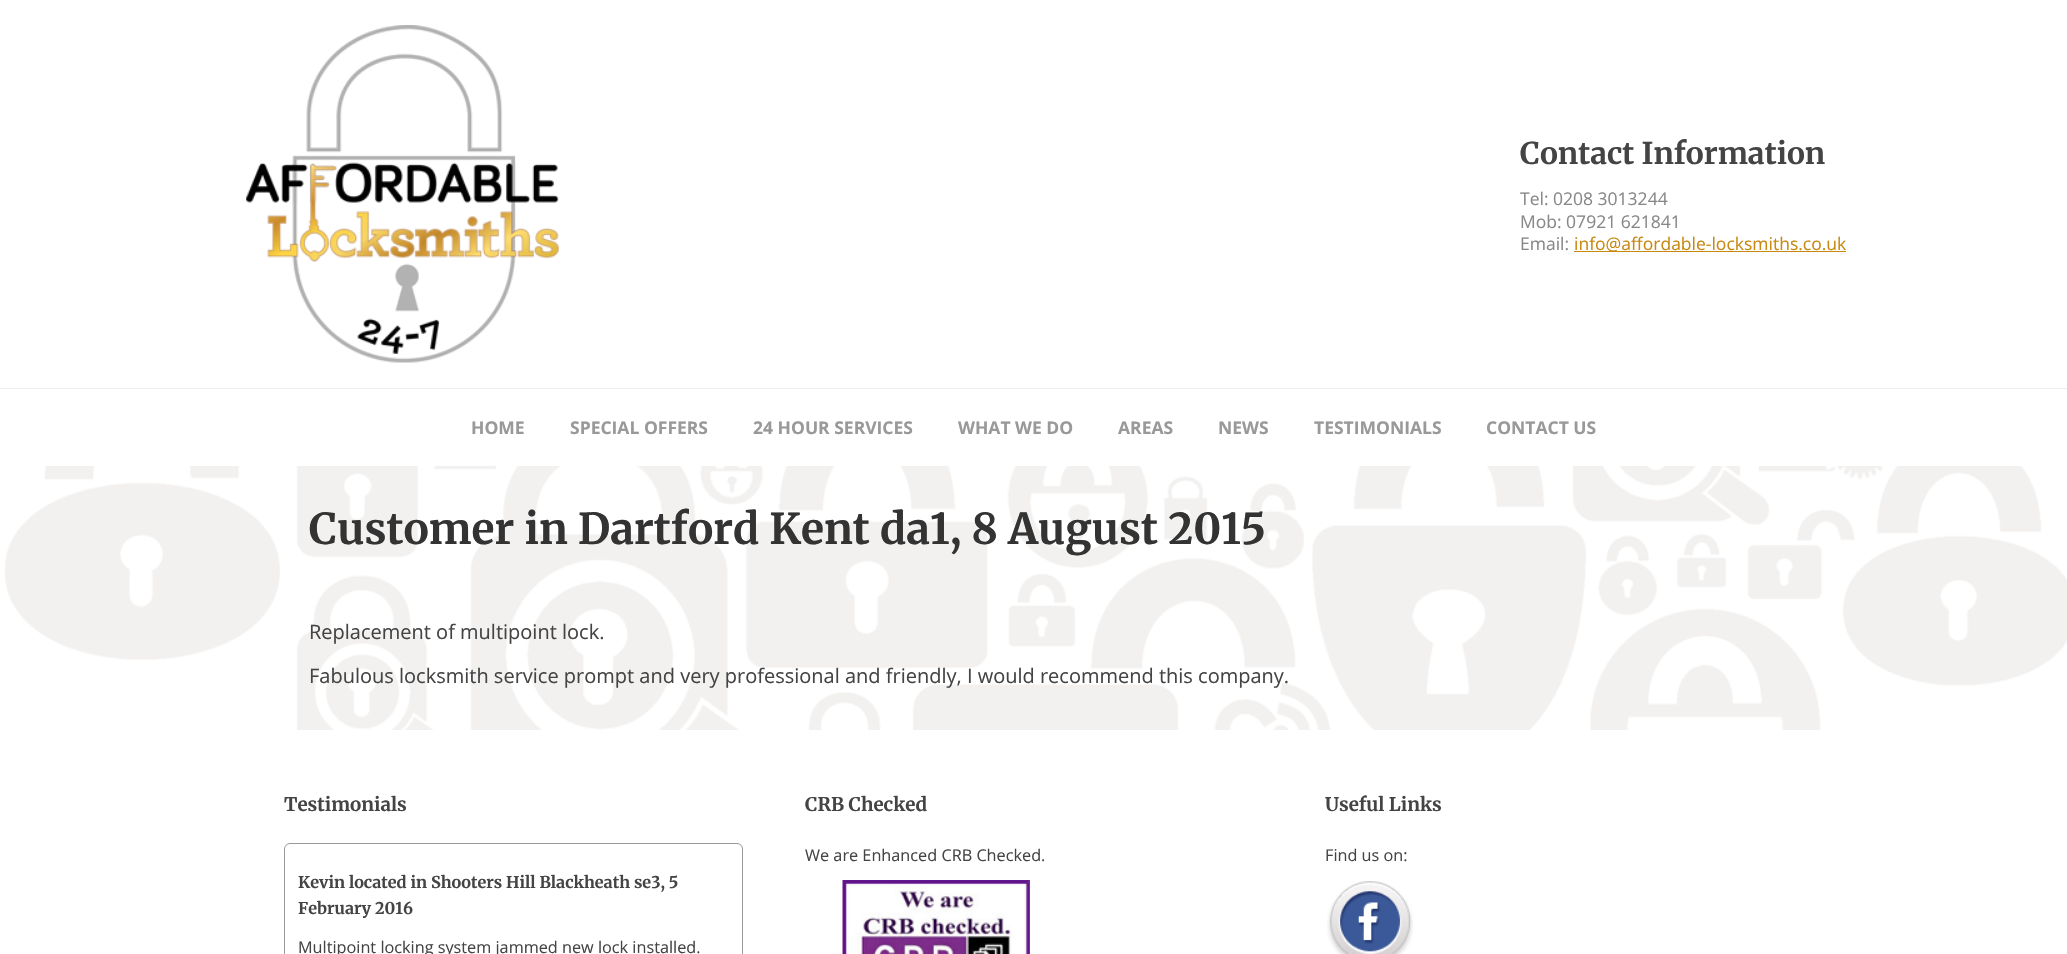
static SkFont makeFont(const char* family, int weight, float size, bool italic = false) {
  SkFontStyle style(weight, SkFontStyle::kNormal_Width,
    italic ? SkFontStyle::kItalic_Slant : SkFontStyle::kUpright_Slant);
  SkFont result(fontMgr->matchFamilyStyle(family, style), size);
  result.setSubpixel(true);
  return result;
}

static void text(SkCanvas* c, const char* s, float x, float y, const SkFont& font, SkColor color) {
  SkPaint ink(SkColor4f::FromColor(color));
  ink.setAntiAlias(true);
  c->drawString(s, x, y, font, ink);
}

static void box(SkCanvas* c, float l, float t, float r, float b, SkColor color) {
  SkPaint ink(SkColor4f::FromColor(color));
  ink.setAntiAlias(true);
  c->drawRect(SkRect::MakeLTRB(l, t, r, b), ink);
}

static void picture(SkCanvas* c, const char* path, float l, float t, float r, float b) {
  auto image = SkImages::DeferredFromEncodedData(SkData::MakeFromFileName(path));
  c->drawImageRect(image, SkRect::MakeLTRB(l, t, r, b), SkSamplingOptions());
}

void draw(SkCanvas* c) {
  SkPaint paint;
  paint.setAntiAlias(true);
  c->clear(0xffffffff);
  picture(c, "img_01.png", 0, 466, 2067, 730);
  picture(c, "img_02.png", 246, 25, 559, 363);
  SkFont face1 = makeFont("Merriweather", 700, 30);
  text(c, "Contact Information", 1520, 164, face1, 0xff444444);
  SkFont face2 = makeFont("Open Sans", 400, 17.5f);
  text(c, "Tel: 0208 3013244", 1520, 205, face2, 0xff888888);
  text(c, "Mob: 07921 621841", 1520, 228, face2, 0xff888888);
  text(c, "Email:", 1520, 250, face2, 0xff888888);
  box(c, 1574, 251, 1846, 252, 0xffc78911);
  text(c, "info@affordable-locksmiths.co.uk", 1574, 250, face2, 0xffc78911);
  box(c, 0, 388, 2067, 389, 0xffededed);
  SkFont face3 = makeFont("Open Sans", 700, 17.5f);
  text(c, "HOME", 471, 434, face3, 0xff999999);
  text(c, "SPECIAL OFFERS", 570, 434, face3, 0xff999999);
  text(c, "24 HOUR SERVICES", 753, 434, face3, 0xff999999);
  text(c, "WHAT WE DO", 958, 434, face3, 0xff999999);
  text(c, "AREAS", 1118, 434, face3, 0xff999999);
  text(c, "NEWS", 1218, 434, face3, 0xff999999);
  text(c, "TESTIMONIALS", 1314, 434, face3, 0xff999999);
  text(c, "CONTACT US", 1486, 434, face3, 0xff999999);
  SkFont face4 = makeFont("Merriweather", 700, 42.5f);
  text(c, "Customer in Dartford Kent da1, 8 August 2015", 309, 544, face4, 0xff333333);
  SkFont face5 = makeFont("Open Sans", 400, 20);
  text(c, "Replacement of multipoint lock.", 309, 639, face5, 0xff444444);
  text(c, "Fabulous locksmith service prompt and very professional and friendly, I would recommend this company.", 309, 683, face5, 0xff444444);
  SkFont face6 = makeFont("Merriweather", 700, 18.75f);
  text(c, "Testimonials", 284, 811, face6, 0xff444444);
  paint.setStyle(SkPaint::kStroke_Style);
  paint.setStrokeWidth(1);
  paint.setColor(0xff999999);
  c->drawRoundRect(SkRect::MakeLTRB(284.5f, 843.5f, 742.5f, 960.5f), 5.5f, 5.5f, paint);
  SkFont face7 = makeFont("Merriweather", 700, 16.25f);
  text(c, "Kevin located in Shooters Hill Blackheath se3, 5", 298, 888, face7, 0xff444444);
  text(c, "February 2016", 298, 914, face7, 0xff444444);
  SkFont face8 = makeFont("Open Sans", 400, 16.25f);
  text(c, "Multipoint locking system jammed new lock installed.", 298, 953, face8, 0xff444444);
  text(c, "CRB Checked", 805, 811, face6, 0xff444444);
  text(c, "We are Enhanced CRB Checked.", 805, 861, face8, 0xff444444);
  picture(c, "img_03.png", 842, 880, 1030, 954);
  text(c, "Useful Links", 1325, 811, face6, 0xff444444);
  text(c, "Find us on:", 1325, 861, face8, 0xff444444);
  picture(c, "img_04.png", 1327, 881, 1413, 954);
}
